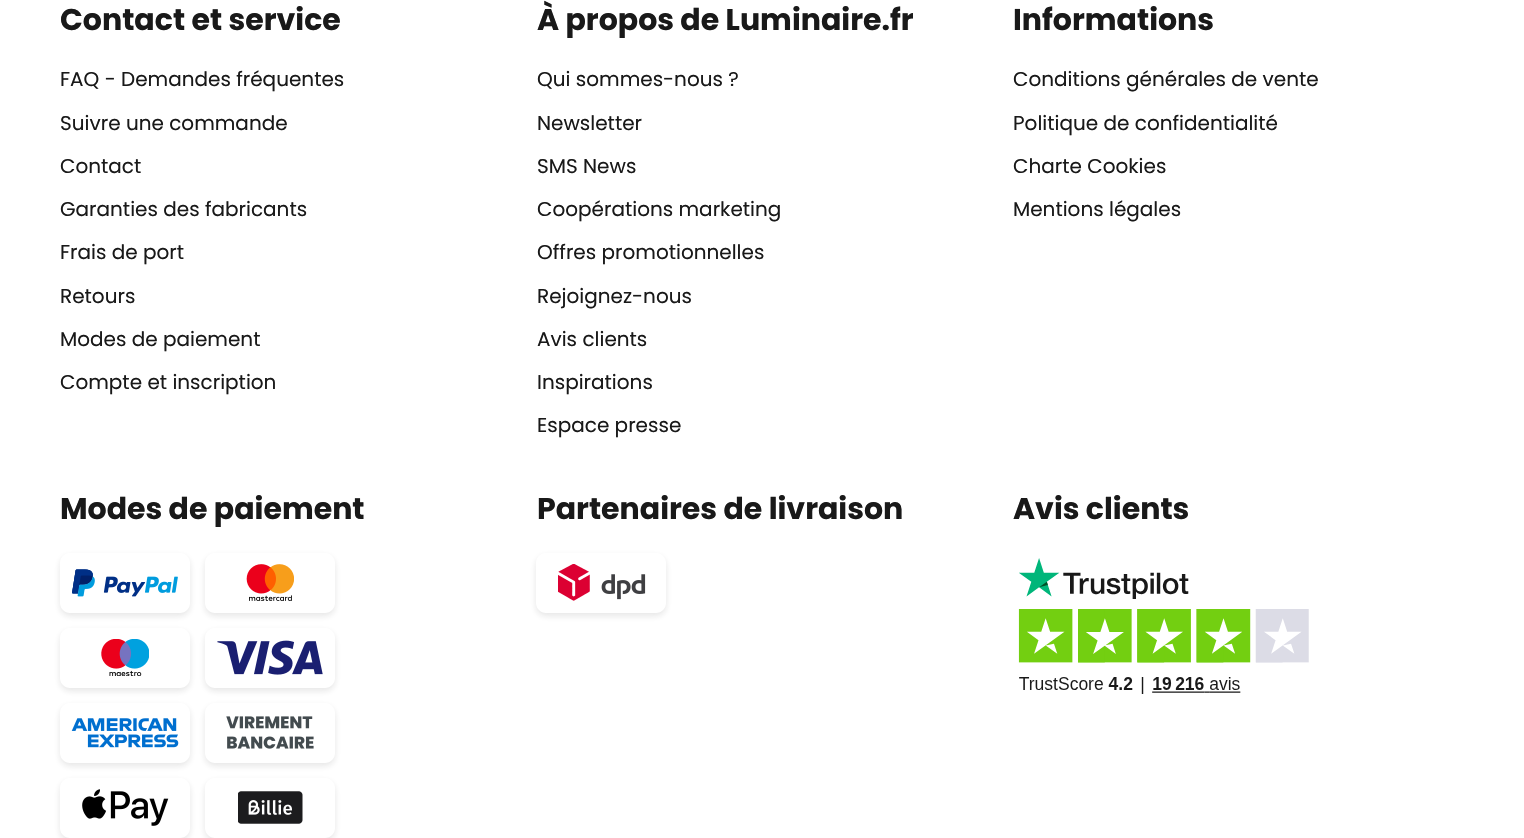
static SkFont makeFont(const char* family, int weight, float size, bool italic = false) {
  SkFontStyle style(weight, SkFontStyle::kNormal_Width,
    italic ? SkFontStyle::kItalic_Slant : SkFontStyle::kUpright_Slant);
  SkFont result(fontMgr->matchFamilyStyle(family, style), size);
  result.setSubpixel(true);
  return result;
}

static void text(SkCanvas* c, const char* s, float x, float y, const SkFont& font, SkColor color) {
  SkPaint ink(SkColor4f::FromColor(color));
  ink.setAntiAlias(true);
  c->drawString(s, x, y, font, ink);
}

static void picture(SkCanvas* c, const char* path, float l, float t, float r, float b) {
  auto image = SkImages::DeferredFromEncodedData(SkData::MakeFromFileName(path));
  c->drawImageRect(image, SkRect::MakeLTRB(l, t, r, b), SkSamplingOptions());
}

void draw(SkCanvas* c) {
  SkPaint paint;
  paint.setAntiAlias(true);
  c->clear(0xffffffff);
  SkFont face1 = makeFont("Poppins", 700, 30);
  text(c, "Contact et service", 60, 30, face1, 0xff191919);
  SkFont face2 = makeFont("Poppins", 400, 20);
  text(c, "FAQ - Demandes fréquentes", 60, 86, face2, 0xff191919);
  text(c, "Suivre une commande", 60, 130, face2, 0xff191919);
  text(c, "Contact", 60, 173, face2, 0xff191919);
  text(c, "Garanties des fabricants", 60, 216, face2, 0xff191919);
  text(c, "Frais de port", 60, 259, face2, 0xff191919);
  text(c, "Retours", 60, 303, face2, 0xff191919);
  text(c, "Modes de paiement", 60, 346, face2, 0xff191919);
  text(c, "Compte et inscription", 60, 389, face2, 0xff191919);
  text(c, "À propos de Luminaire.fr", 537, 30, face1, 0xff191919);
  text(c, "Qui sommes-nous ?", 537, 86, face2, 0xff191919);
  text(c, "Newsletter", 537, 130, face2, 0xff191919);
  text(c, "SMS News", 537, 173, face2, 0xff191919);
  text(c, "Coopérations marketing", 537, 216, face2, 0xff191919);
  text(c, "Offres promotionnelles", 537, 259, face2, 0xff191919);
  text(c, "Rejoignez-nous", 537, 303, face2, 0xff191919);
  text(c, "Avis clients", 537, 346, face2, 0xff191919);
  text(c, "Inspirations", 537, 389, face2, 0xff191919);
  text(c, "Espace presse", 537, 432, face2, 0xff191919);
  text(c, "Informations", 1013, 30, face1, 0xff191919);
  text(c, "Conditions générales de vente", 1013, 86, face2, 0xff191919);
  text(c, "Politique de confidentialité", 1013, 130, face2, 0xff191919);
  text(c, "Charte Cookies", 1013, 173, face2, 0xff191919);
  text(c, "Mentions légales", 1013, 216, face2, 0xff191919);
  text(c, "Modes de paiement", 60, 519, face1, 0xff191919);
  c->save();
  c->clipPath(SkPathBuilder(SkPathFillType::kEvenOdd).moveTo(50, 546).lineTo(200, 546).lineTo(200, 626).lineTo(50, 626).close().moveTo(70, 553).lineTo(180, 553).cubicTo(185.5f, 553, 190, 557.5f, 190, 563).lineTo(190, 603).cubicTo(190, 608.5f, 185.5f, 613, 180, 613).lineTo(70, 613).cubicTo(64.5f, 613, 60, 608.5f, 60, 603).lineTo(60, 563).cubicTo(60, 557.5f, 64.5f, 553, 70, 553).close().detach(), true);
  paint.setColor(0x1c191919);
  paint.setMaskFilter(SkMaskFilter::MakeBlur(kNormal_SkBlurStyle, 3));
  c->drawRoundRect(SkRect::MakeLTRB(60, 556, 190, 616), 10, 10, paint);
  paint.setMaskFilter(nullptr);
  c->restore();
  picture(c, "img_01.png", 72, 569, 178, 597);
  c->save();
  c->clipPath(SkPathBuilder(SkPathFillType::kEvenOdd).moveTo(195, 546).lineTo(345, 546).lineTo(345, 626).lineTo(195, 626).close().moveTo(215, 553).lineTo(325, 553).cubicTo(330.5f, 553, 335, 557.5f, 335, 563).lineTo(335, 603).cubicTo(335, 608.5f, 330.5f, 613, 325, 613).lineTo(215, 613).cubicTo(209.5f, 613, 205, 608.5f, 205, 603).lineTo(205, 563).cubicTo(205, 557.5f, 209.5f, 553, 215, 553).close().detach(), true);
  paint.setMaskFilter(SkMaskFilter::MakeBlur(kNormal_SkBlurStyle, 3));
  c->drawRoundRect(SkRect::MakeLTRB(205, 556, 335, 616), 10, 10, paint);
  paint.setMaskFilter(nullptr);
  c->restore();
  picture(c, "img_02.png", 246, 564, 294, 601);
  c->save();
  c->clipPath(SkPathBuilder(SkPathFillType::kEvenOdd).moveTo(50, 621).lineTo(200, 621).lineTo(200, 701).lineTo(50, 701).close().moveTo(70, 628).lineTo(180, 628).cubicTo(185.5f, 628, 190, 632.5f, 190, 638).lineTo(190, 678).cubicTo(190, 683.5f, 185.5f, 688, 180, 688).lineTo(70, 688).cubicTo(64.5f, 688, 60, 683.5f, 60, 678).lineTo(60, 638).cubicTo(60, 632.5f, 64.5f, 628, 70, 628).close().detach(), true);
  paint.setMaskFilter(SkMaskFilter::MakeBlur(kNormal_SkBlurStyle, 3));
  c->drawRoundRect(SkRect::MakeLTRB(60, 631, 190, 691), 10, 10, paint);
  paint.setMaskFilter(nullptr);
  c->restore();
  picture(c, "img_03.png", 101, 639, 149, 676);
  c->save();
  c->clipPath(SkPathBuilder(SkPathFillType::kEvenOdd).moveTo(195, 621).lineTo(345, 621).lineTo(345, 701).lineTo(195, 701).close().moveTo(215, 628).lineTo(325, 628).cubicTo(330.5f, 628, 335, 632.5f, 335, 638).lineTo(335, 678).cubicTo(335, 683.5f, 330.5f, 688, 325, 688).lineTo(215, 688).cubicTo(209.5f, 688, 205, 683.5f, 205, 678).lineTo(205, 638).cubicTo(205, 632.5f, 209.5f, 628, 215, 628).close().detach(), true);
  paint.setMaskFilter(SkMaskFilter::MakeBlur(kNormal_SkBlurStyle, 3));
  c->drawRoundRect(SkRect::MakeLTRB(205, 631, 335, 691), 10, 10, paint);
  paint.setMaskFilter(nullptr);
  c->restore();
  picture(c, "img_04.png", 217, 640, 323, 675);
  c->save();
  c->clipPath(SkPathBuilder(SkPathFillType::kEvenOdd).moveTo(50, 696).lineTo(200, 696).lineTo(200, 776).lineTo(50, 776).close().moveTo(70, 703).lineTo(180, 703).cubicTo(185.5f, 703, 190, 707.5f, 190, 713).lineTo(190, 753).cubicTo(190, 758.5f, 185.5f, 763, 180, 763).lineTo(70, 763).cubicTo(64.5f, 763, 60, 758.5f, 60, 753).lineTo(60, 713).cubicTo(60, 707.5f, 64.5f, 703, 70, 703).close().detach(), true);
  paint.setMaskFilter(SkMaskFilter::MakeBlur(kNormal_SkBlurStyle, 3));
  c->drawRoundRect(SkRect::MakeLTRB(60, 706, 190, 766), 10, 10, paint);
  paint.setMaskFilter(nullptr);
  c->restore();
  picture(c, "img_05.png", 71, 718, 179, 748);
  c->save();
  c->clipPath(SkPathBuilder(SkPathFillType::kEvenOdd).moveTo(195, 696).lineTo(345, 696).lineTo(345, 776).lineTo(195, 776).close().moveTo(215, 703).lineTo(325, 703).cubicTo(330.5f, 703, 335, 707.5f, 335, 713).lineTo(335, 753).cubicTo(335, 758.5f, 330.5f, 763, 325, 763).lineTo(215, 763).cubicTo(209.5f, 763, 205, 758.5f, 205, 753).lineTo(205, 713).cubicTo(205, 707.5f, 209.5f, 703, 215, 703).close().detach(), true);
  paint.setMaskFilter(SkMaskFilter::MakeBlur(kNormal_SkBlurStyle, 3));
  c->drawRoundRect(SkRect::MakeLTRB(205, 706, 335, 766), 10, 10, paint);
  paint.setMaskFilter(nullptr);
  c->restore();
  picture(c, "img_06.png", 226, 716, 314, 749);
  c->save();
  c->clipPath(SkPathBuilder(SkPathFillType::kEvenOdd).moveTo(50, 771).lineTo(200, 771).lineTo(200, 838).lineTo(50, 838).close().moveTo(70, 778).lineTo(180, 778).cubicTo(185.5f, 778, 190, 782.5f, 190, 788).lineTo(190, 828).cubicTo(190, 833.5f, 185.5f, 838, 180, 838).lineTo(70, 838).cubicTo(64.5f, 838, 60, 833.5f, 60, 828).lineTo(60, 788).cubicTo(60, 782.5f, 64.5f, 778, 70, 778).close().detach(), true);
  paint.setMaskFilter(SkMaskFilter::MakeBlur(kNormal_SkBlurStyle, 3));
  c->drawRoundRect(SkRect::MakeLTRB(60, 781, 190, 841), 10, 10, paint);
  paint.setMaskFilter(nullptr);
  c->restore();
  picture(c, "img_07.png", 82, 789, 169, 826);
  c->save();
  c->clipPath(SkPathBuilder(SkPathFillType::kEvenOdd).moveTo(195, 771).lineTo(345, 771).lineTo(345, 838).lineTo(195, 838).close().moveTo(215, 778).lineTo(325, 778).cubicTo(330.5f, 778, 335, 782.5f, 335, 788).lineTo(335, 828).cubicTo(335, 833.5f, 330.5f, 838, 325, 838).lineTo(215, 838).cubicTo(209.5f, 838, 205, 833.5f, 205, 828).lineTo(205, 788).cubicTo(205, 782.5f, 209.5f, 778, 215, 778).close().detach(), true);
  paint.setMaskFilter(SkMaskFilter::MakeBlur(kNormal_SkBlurStyle, 3));
  c->drawRoundRect(SkRect::MakeLTRB(205, 781, 335, 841), 10, 10, paint);
  paint.setMaskFilter(nullptr);
  c->restore();
  picture(c, "img_08.png", 238, 791, 303, 824);
  text(c, "Partenaires de livraison", 537, 519, face1, 0xff191919);
  c->save();
  c->clipPath(SkPathBuilder(SkPathFillType::kEvenOdd).moveTo(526, 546).lineTo(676, 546).lineTo(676, 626).lineTo(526, 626).close().moveTo(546, 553).lineTo(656, 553).cubicTo(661.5f, 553, 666, 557.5f, 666, 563).lineTo(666, 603).cubicTo(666, 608.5f, 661.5f, 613, 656, 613).lineTo(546, 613).cubicTo(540.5f, 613, 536, 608.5f, 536, 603).lineTo(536, 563).cubicTo(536, 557.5f, 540.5f, 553, 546, 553).close().detach(), true);
  paint.setMaskFilter(SkMaskFilter::MakeBlur(kNormal_SkBlurStyle, 3));
  c->drawRoundRect(SkRect::MakeLTRB(536, 556, 666, 616), 10, 10, paint);
  paint.setMaskFilter(nullptr);
  c->restore();
  picture(c, "img_09.png", 558, 564, 646, 601);
  text(c, "Avis clients", 1013, 519, face1, 0xff191919);
  picture(c, "img_10.png", 1018, 558, 1309, 694);
}
